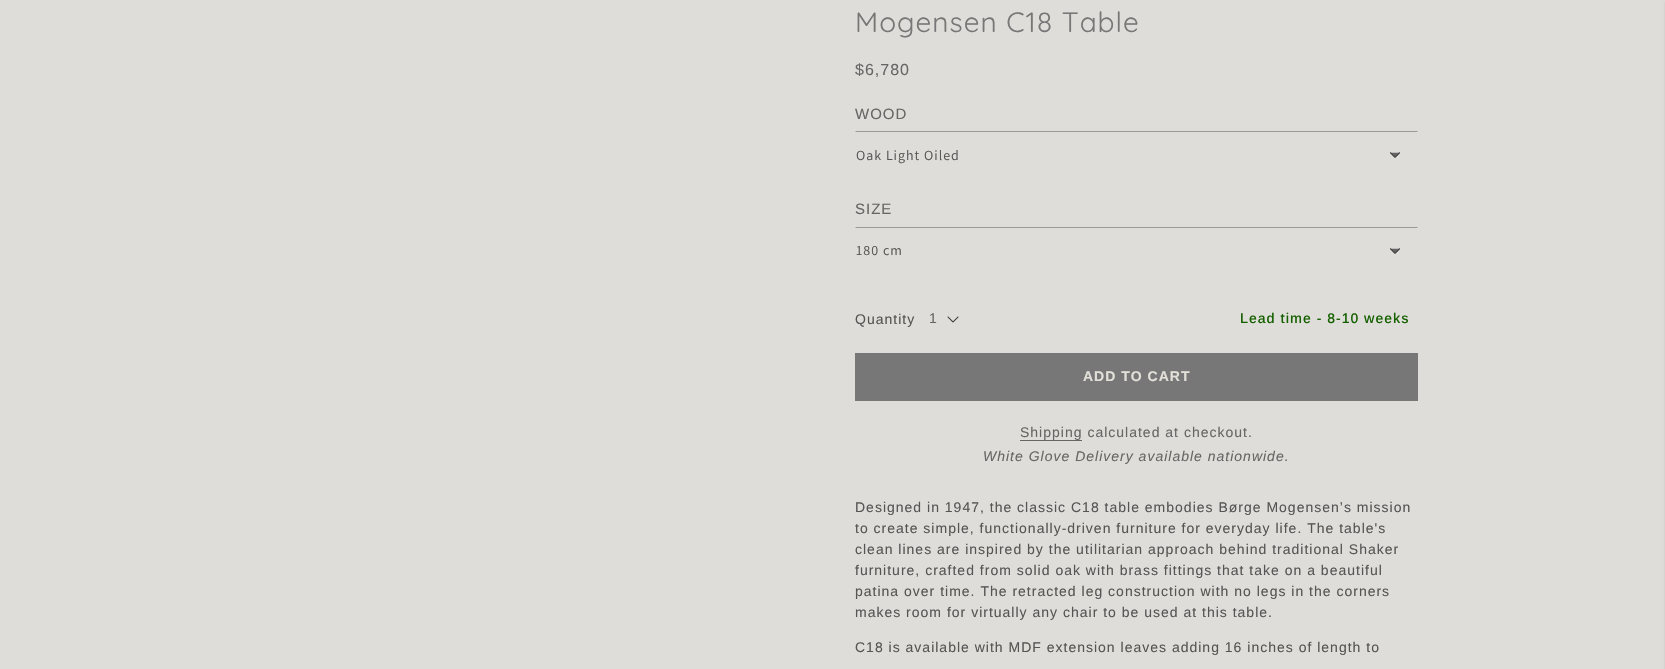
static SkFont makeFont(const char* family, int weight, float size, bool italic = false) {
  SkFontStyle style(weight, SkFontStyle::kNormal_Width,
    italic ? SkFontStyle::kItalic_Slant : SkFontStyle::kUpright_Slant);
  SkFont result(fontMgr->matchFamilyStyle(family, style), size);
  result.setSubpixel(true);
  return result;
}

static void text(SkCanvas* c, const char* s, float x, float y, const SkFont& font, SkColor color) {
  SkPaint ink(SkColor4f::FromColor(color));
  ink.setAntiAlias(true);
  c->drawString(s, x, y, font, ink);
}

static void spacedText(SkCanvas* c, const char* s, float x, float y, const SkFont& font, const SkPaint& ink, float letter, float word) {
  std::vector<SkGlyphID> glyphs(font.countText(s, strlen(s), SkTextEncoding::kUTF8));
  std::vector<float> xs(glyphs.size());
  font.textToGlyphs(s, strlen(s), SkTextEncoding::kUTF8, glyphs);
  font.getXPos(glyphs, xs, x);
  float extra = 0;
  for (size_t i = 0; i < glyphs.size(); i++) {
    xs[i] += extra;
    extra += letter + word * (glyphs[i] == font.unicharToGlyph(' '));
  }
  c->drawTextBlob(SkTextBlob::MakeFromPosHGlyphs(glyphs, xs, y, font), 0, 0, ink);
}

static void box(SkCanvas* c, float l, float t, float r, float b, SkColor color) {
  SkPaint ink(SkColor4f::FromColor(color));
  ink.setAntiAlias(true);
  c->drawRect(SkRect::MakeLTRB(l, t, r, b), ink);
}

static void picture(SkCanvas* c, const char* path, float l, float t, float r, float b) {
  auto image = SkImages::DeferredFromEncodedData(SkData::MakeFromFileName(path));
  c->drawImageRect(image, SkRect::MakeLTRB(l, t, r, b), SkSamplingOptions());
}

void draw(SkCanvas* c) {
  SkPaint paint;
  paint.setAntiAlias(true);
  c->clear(0xffdfddd9);
  SkFont face1 = makeFont("Quicksand", 400, 28);
  paint.setColor(0xff777777);
  spacedText(c, "Mogensen C18 Table", 855, 32, face1, paint, 1, 0);
  SkFont face2 = makeFont("Arimo", 400, 16);
  paint.setColor(0xff666666);
  spacedText(c, "$6,780", 855, 75, face2, paint, 1, 0);
  SkFont face3 = makeFont("Arimo", 400, 15);
  spacedText(c, "WOOD", 855, 119, face3, paint, 1, 0);
  paint.setColor(0xff999999);
  c->drawPath(SkPathBuilder().moveTo(855, 131).lineTo(1418, 131).lineTo(1417, 132).lineTo(856, 132).close().detach(), paint);
  SkFont face4 = makeFont("Assistant", 400, 14);
  paint.setColor(0xff555555);
  spacedText(c, "Oak Light Oiled", 856, 160, face4, paint, 1, 0);
  picture(c, "img_01.png", 1390, 152, 1400, 158);
  paint.setColor(0xff666666);
  spacedText(c, "SIZE", 855, 214, face3, paint, 1, 0);
  paint.setColor(0xff999999);
  c->drawPath(SkPathBuilder().moveTo(855, 227).lineTo(1418, 227).lineTo(1417, 228).lineTo(856, 228).close().detach(), paint);
  paint.setColor(0xff555555);
  spacedText(c, "180 cm", 856, 255, face4, paint, 1, 0);
  picture(c, "img_01.png", 1390, 248, 1400, 254);
  SkFont face5 = makeFont("Arimo", 400, 14);
  spacedText(c, "Quantity", 855, 324, face5, paint, 1, 0);
  picture(c, "img_02.png", 947, 316, 959, 323);
  text(c, "1", 929, 323, face5, 0xff666666);
  SkFont face6 = makeFont("Arimo", 500, 14);
  paint.setColor(0xff146000);
  spacedText(c, "Lead time - 8-10 weeks", 1240, 323, face6, paint, 1, 0);
  box(c, 855, 353, 1418, 401, 0xff777777);
  SkFont face7 = makeFont("Arimo", 700, 14);
  paint.setColor(0xffe2e0d9);
  spacedText(c, "ADD TO CART", 1083, 381, face7, paint, 1, 0);
  paint.setColor(0xff666666);
  spacedText(c, "Shipping calculated at checkout.", 1020, 437, face5, paint, 1, 0);
  box(c, 1020, 440, 1082, 441, 0xff666666);
  SkFont face8 = makeFont("Arimo", 400, 14, true);
  spacedText(c, "White Glove Delivery available nationwide.", 983, 461, face8, paint, 1, 0);
  paint.setColor(0xff555555);
  spacedText(c, "Designed in 1947, the classic C18 table embodies Børge Mogensen’s mission", 855, 512, face5, paint, 1, 0);
  spacedText(c, "to create simple, functionally-driven furniture for everyday life. The table's", 855, 533, face5, paint, 1, 0);
  spacedText(c, "clean lines are inspired by the utilitarian approach behind traditional Shaker", 855, 554, face5, paint, 1, 0);
  spacedText(c, "furniture, crafted from solid oak with brass fittings that take on a beautiful", 855, 575, face5, paint, 1, 0);
  spacedText(c, "patina over time. The retracted leg construction with no legs in the corners", 855, 596, face5, paint, 1, 0);
  spacedText(c, "makes room for virtually any chair to be used at this table.", 855, 617, face5, paint, 1, 0);
  spacedText(c, "C18 is available with MDF extension leaves adding 16 inches of length to", 855, 652, face5, paint, 1, 0);
  paint.setColor(0x26000000);
  paint.setMaskFilter(SkMaskFilter::MakeBlur(kNormal_SkBlurStyle, 1));
  c->drawRect(SkRect::MakeLTRB(1665, 2, 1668, 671), paint);
  paint.setMaskFilter(nullptr);
}
